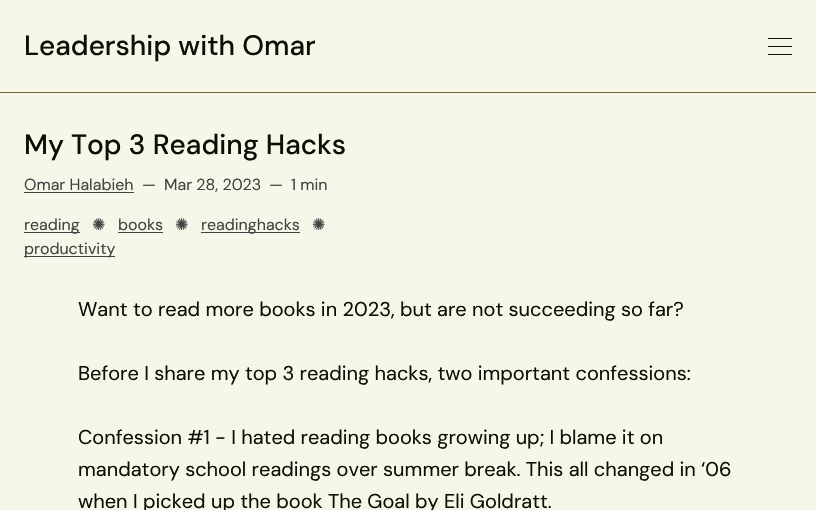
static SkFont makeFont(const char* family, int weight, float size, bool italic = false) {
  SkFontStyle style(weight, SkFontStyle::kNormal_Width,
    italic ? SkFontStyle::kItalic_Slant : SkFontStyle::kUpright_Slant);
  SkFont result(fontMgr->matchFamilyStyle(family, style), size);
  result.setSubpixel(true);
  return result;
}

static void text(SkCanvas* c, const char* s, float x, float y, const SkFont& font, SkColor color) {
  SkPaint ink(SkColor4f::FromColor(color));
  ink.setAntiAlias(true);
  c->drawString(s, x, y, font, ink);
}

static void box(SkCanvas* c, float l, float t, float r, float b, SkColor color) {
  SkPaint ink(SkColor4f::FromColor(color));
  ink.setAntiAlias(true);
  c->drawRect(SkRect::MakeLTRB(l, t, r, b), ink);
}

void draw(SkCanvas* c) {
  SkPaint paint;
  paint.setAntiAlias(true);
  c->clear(0xfff7f7e9);
  box(c, 0, 92, 816, 93, 0xff6a6a25);
  SkFont face1 = makeFont("DM Sans", 500, 28);
  text(c, "Leadership with Omar", 24, 55, face1, 0xff0f0f06);
  box(c, 768, 38, 792, 39, 0xff0f0f06);
  box(c, 768, 46, 792, 47, 0xff0f0f06);
  box(c, 768, 54, 792, 55, 0xff0f0f06);
  text(c, "My Top 3 Reading Hacks", 24, 154, face1, 0xff0f0f06);
  SkFont face2 = makeFont("DM Sans", 400, 16);
  text(c, "Omar Halabieh", 24, 190, face2, 0xff424242);
  box(c, 24, 192, 134, 193, 0xff424242);
  text(c, "—", 142, 190, face2, 0xff424242);
  text(c, "Mar 28, 2023", 164, 190, face2, 0xff424242);
  text(c, "—", 269, 190, face2, 0xff424242);
  text(c, "1 min", 291, 190, face2, 0xff424242);
  box(c, 24, 232, 80, 233, 0xff424242);
  text(c, "reading", 24, 230, face2, 0xff424242);
  SkFont face3 = makeFont("DejaVu Sans", 400, 16);
  text(c, "✺", 92, 230, face3, 0xff424242);
  text(c, "books", 118, 230, face2, 0xff424242);
  box(c, 118, 232, 163, 233, 0xff424242);
  text(c, "✺", 175, 230, face3, 0xff424242);
  box(c, 201, 232, 300, 233, 0xff424242);
  text(c, "readinghacks", 201, 230, face2, 0xff424242);
  text(c, "✺", 312, 230, face3, 0xff424242);
  box(c, 24, 256, 115, 257, 0xff424242);
  text(c, "productivity", 24, 254, face2, 0xff424242);
  SkFont face4 = makeFont("DM Sans", 400, 20);
  text(c, "Want to read more books in 2023, but are not succeeding so far?", 78, 316, face4, 0xff0f0f06);
  text(c, "Before I share my top 3 reading hacks, two important confessions:", 78, 380, face4, 0xff0f0f06);
  text(c, "Confession #1 - I hated reading books growing up; I blame it on", 78, 444, face4, 0xff0f0f06);
  text(c, "mandatory school readings over summer break. This all changed in ‘06", 78, 476, face4, 0xff0f0f06);
  text(c, "when I picked up the book The Goal by Eli Goldratt.", 78, 508, face4, 0xff0f0f06);
}
